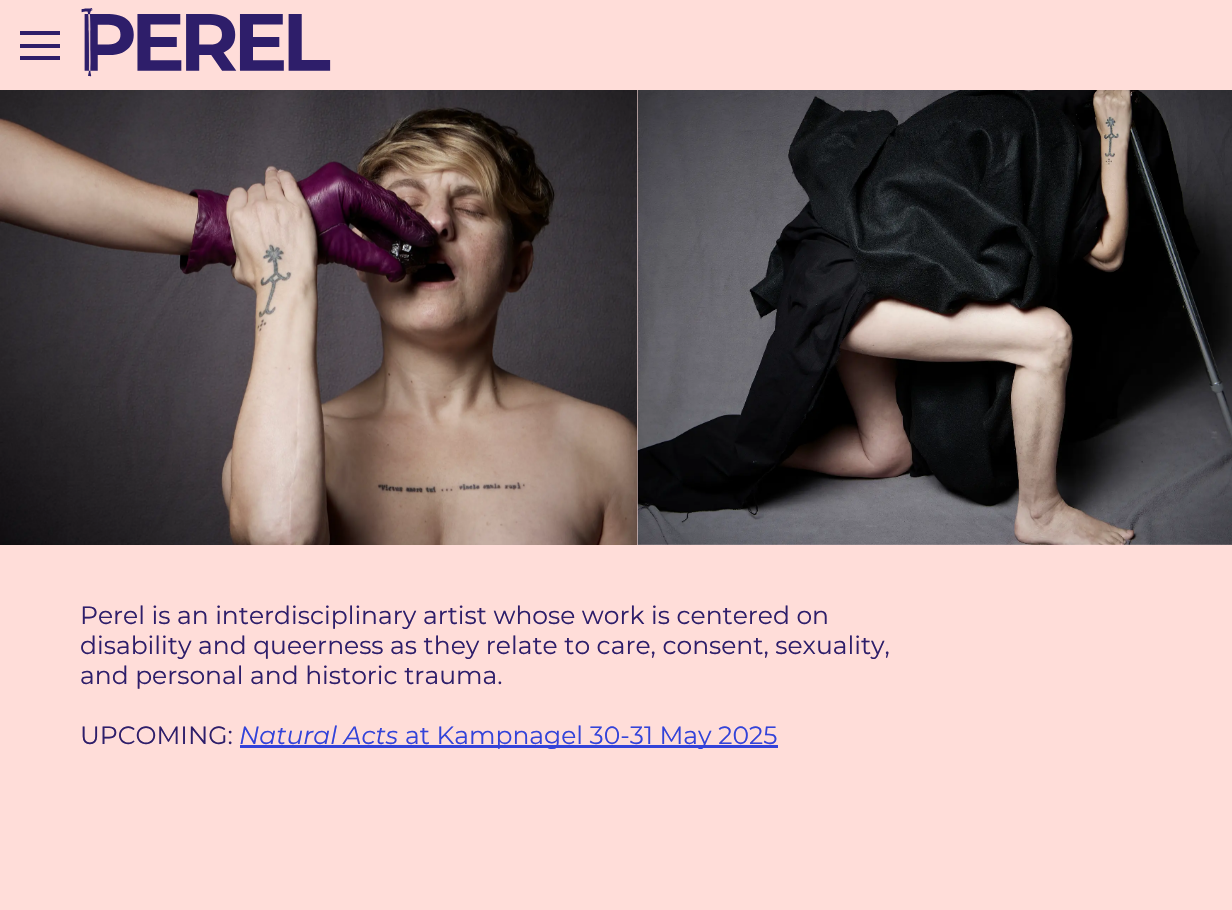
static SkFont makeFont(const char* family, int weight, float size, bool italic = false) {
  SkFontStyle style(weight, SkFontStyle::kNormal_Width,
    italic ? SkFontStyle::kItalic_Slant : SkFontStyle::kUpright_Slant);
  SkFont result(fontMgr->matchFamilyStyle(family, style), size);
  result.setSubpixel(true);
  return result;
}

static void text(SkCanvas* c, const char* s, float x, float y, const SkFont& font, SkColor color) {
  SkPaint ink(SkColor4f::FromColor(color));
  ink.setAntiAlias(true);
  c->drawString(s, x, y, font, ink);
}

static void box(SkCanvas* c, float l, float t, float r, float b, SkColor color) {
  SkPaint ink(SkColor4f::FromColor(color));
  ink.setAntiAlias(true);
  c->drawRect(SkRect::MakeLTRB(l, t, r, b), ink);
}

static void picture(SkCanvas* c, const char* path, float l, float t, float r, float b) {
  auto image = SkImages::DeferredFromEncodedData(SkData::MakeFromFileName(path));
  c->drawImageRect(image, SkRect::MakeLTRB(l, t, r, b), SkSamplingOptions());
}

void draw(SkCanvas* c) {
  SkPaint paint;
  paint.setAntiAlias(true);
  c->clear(0xffffddd9);
  box(c, 20, 31, 60, 35, 0xff2e1e6a);
  box(c, 20, 44, 60, 48, 0xff2e1e6a);
  box(c, 20, 56, 60, 60, 0xff2e1e6a);
  picture(c, "img_01.png", 81, 8, 331, 77);
  picture(c, "img_02.png", 0, 90, 637, 545);
  picture(c, "img_03.png", 637, 90, 1232, 545);
  SkFont face1 = makeFont("Montserrat", 400, 25);
  text(c, "Perel is an interdisciplinary artist whose work is centered on", 80, 624, face1, 0xff2e1e6a);
  text(c, "disability and queerness as they relate to care, consent, sexuality,", 80, 654, face1, 0xff2e1e6a);
  text(c, "and personal and historic trauma.", 80, 684, face1, 0xff2e1e6a);
  text(c, "UPCOMING:", 80, 744, face1, 0xff2e1e6a);
  SkFont face2 = makeFont("Montserrat", 400, 25, true);
  text(c, "Natural Acts", 239, 744, face2, 0xff3343d9);
  box(c, 240, 745, 778, 748, 0xff3343d9);
  text(c, "at Kampnagel 30-31 May 2025", 405, 744, face1, 0xff3343d9);
}
